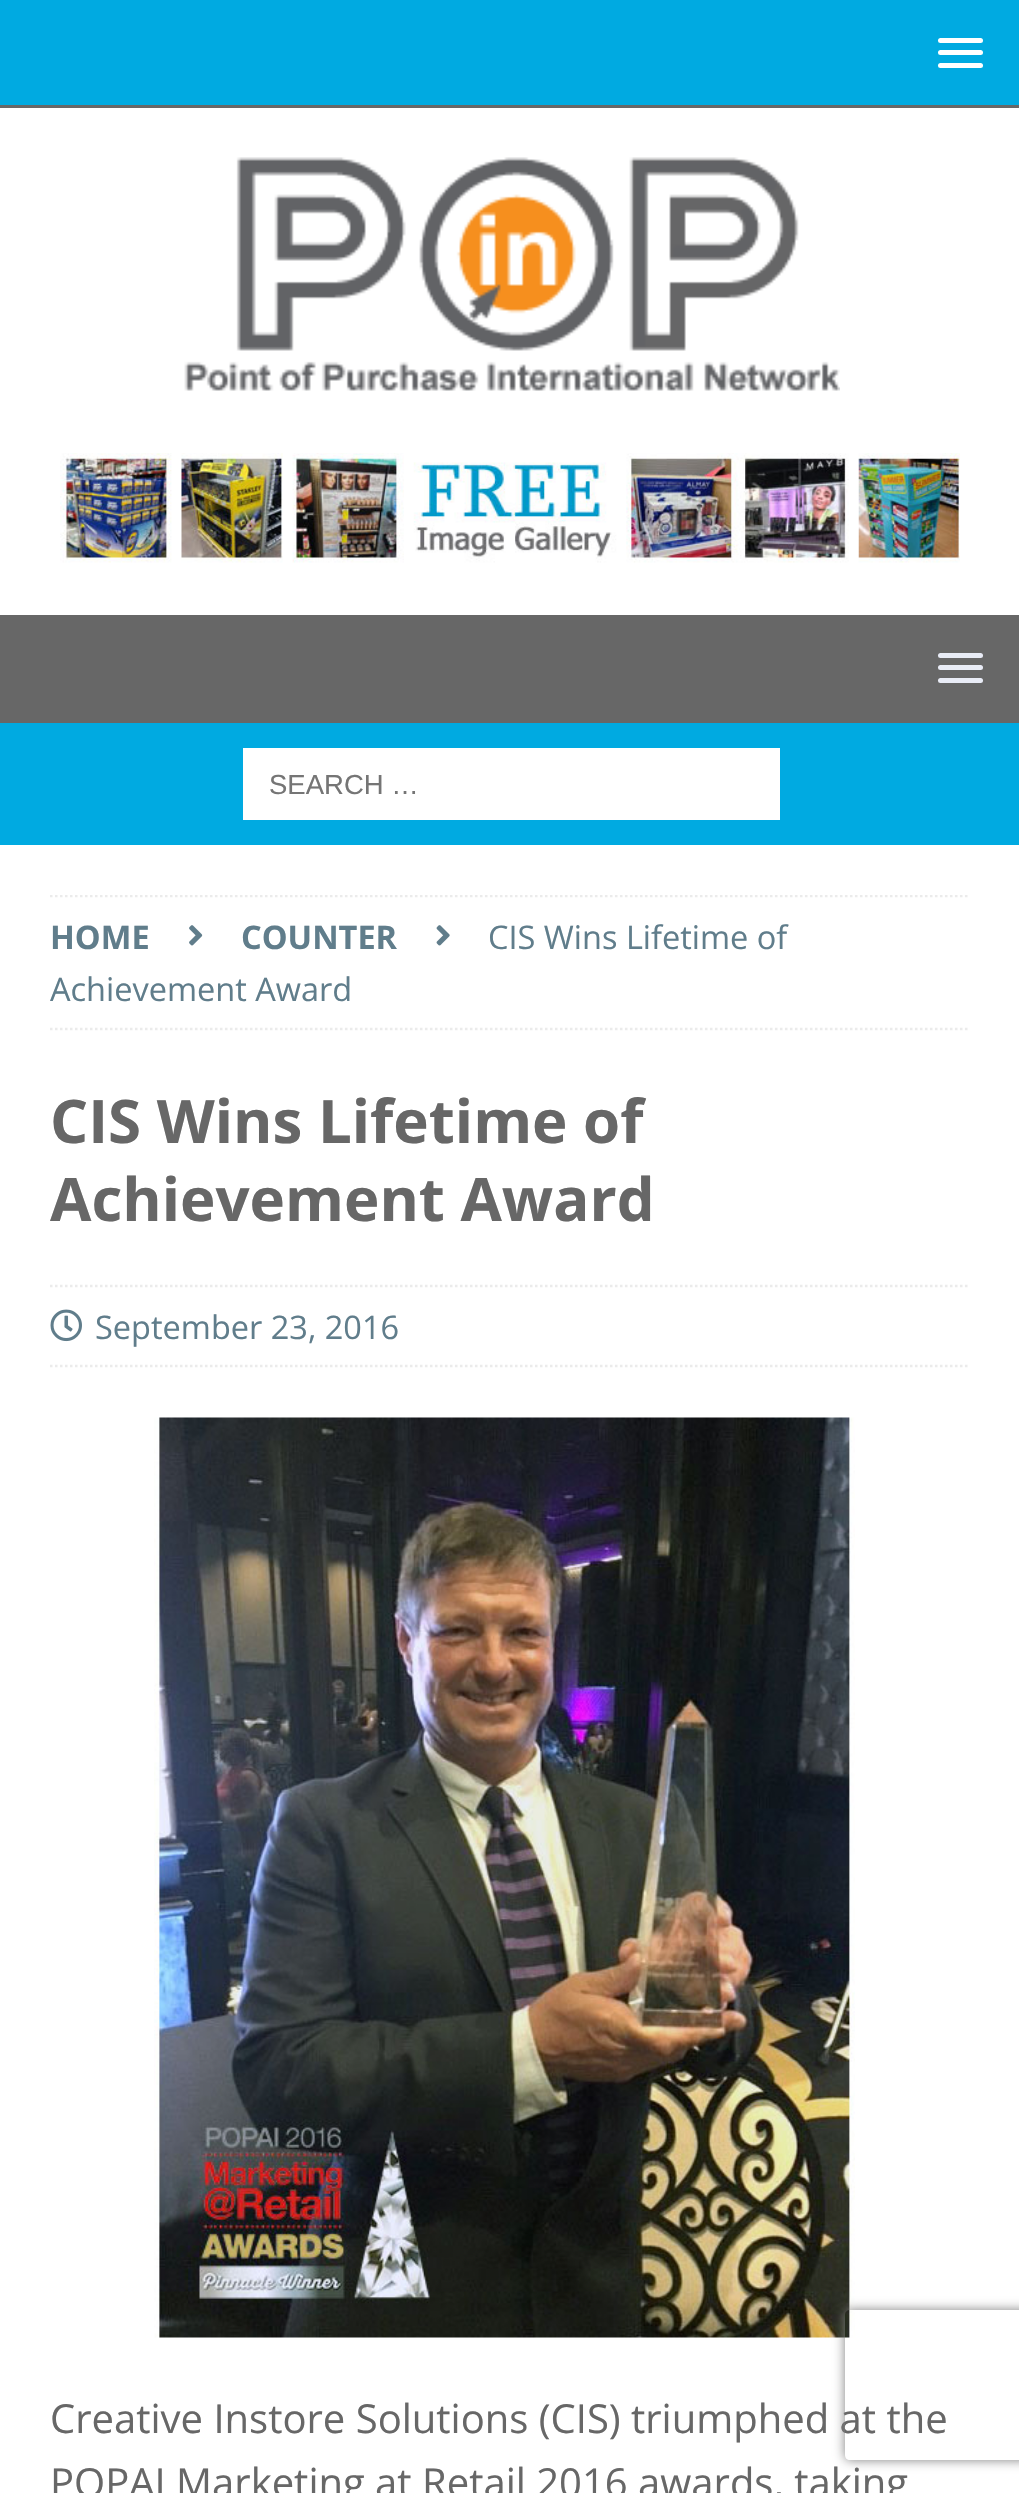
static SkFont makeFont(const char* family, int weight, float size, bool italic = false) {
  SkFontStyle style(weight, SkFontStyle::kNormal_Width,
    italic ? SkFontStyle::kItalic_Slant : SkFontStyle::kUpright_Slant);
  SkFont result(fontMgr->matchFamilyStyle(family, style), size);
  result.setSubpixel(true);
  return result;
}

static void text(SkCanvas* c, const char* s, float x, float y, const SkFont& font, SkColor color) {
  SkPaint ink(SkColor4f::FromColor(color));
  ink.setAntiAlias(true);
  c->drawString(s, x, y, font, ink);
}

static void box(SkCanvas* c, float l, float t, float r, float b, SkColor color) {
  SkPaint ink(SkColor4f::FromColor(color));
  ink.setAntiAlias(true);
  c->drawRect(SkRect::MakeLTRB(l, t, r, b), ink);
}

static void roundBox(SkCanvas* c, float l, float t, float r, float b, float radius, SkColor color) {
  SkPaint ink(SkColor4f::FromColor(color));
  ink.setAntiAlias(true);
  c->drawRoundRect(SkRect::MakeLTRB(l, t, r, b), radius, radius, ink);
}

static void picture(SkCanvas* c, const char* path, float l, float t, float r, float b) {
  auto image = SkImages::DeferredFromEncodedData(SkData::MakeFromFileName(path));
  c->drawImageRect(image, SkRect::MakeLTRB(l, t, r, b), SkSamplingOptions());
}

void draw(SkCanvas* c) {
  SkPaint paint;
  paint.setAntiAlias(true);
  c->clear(0xff00aae1);
  box(c, 0, 105, 1019, 108, 0xff676767);
  roundBox(c, 938, 38, 983, 43, 2.5f, 0xffffffff);
  roundBox(c, 938, 50, 983, 55, 2.5f, 0xffffffff);
  roundBox(c, 938, 63, 983, 68, 2.5f, 0xffffffff);
  box(c, 0, 108, 1019, 615, 0xffffffff);
  picture(c, "img_01.png", 184, 157, 840, 391);
  picture(c, "img_02.png", 60, 453, 960, 563);
  box(c, 0, 615, 1019, 723, 0xff676767);
  roundBox(c, 938, 653, 983, 658, 2.5f, 0xffe9ecf6);
  roundBox(c, 938, 665, 983, 670, 2.5f, 0xffe9ecf6);
  roundBox(c, 938, 678, 983, 683, 2.5f, 0xffe9ecf6);
  box(c, 243, 748, 780, 820, 0xffffffff);
  SkFont face1 = makeFont("Liberation Sans", 400, 27.5f);
  text(c, "SEARCH …", 269, 794, face1, 0xff757575);
  box(c, 0, 845, 1019, 2493, 0xffffffff);
  c->save();
  c->clipRect(SkRect::MakeLTRB(50, 895, 970, 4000));
  paint.setStyle(SkPaint::kStroke_Style);
  paint.setStrokeWidth(2.5f);
  paint.setColor(0xffebebeb);
  paint.setPathEffect(SkDashPathEffect::Make({{2.5f, 2.5f}}, 0));
  c->drawPath(SkPathBuilder().moveTo(50, 896).lineTo(970, 896).detach(), paint);
  paint.setPathEffect(nullptr);
  c->restore();
  paint.setPathEffect(SkDashPathEffect::Make({{2.5f, 2.5f}}, 0));
  c->drawPath(SkPathBuilder().moveTo(50, 1029).lineTo(970, 1029).detach(), paint);
  paint.setPathEffect(nullptr);
  SkFont face2 = makeFont("Open Sans", 700, 32.5f);
  text(c, "HOME", 50, 949, face2, 0xff607d8b);
  picture(c, "img_03.png", 189, 925, 203, 946);
  text(c, "COUNTER", 241, 949, face2, 0xff607d8b);
  picture(c, "img_04.png", 436, 925, 450, 946);
  SkFont face3 = makeFont("Open Sans", 400, 32.5f);
  text(c, "CIS Wins Lifetime of", 488, 949, face3, 0xff607d8b);
  text(c, "Achievement Award", 50, 1001, face3, 0xff607d8b);
  SkFont face4 = makeFont("Open Sans", 700, 60);
  text(c, "CIS Wins Lifetime of", 50, 1143, face4, 0xff676767);
  text(c, "Achievement Award", 50, 1221, face4, 0xff676767);
  paint.setPathEffect(SkDashPathEffect::Make({{2.5f, 2.5f}}, 0));
  c->drawPath(SkPathBuilder().moveTo(50, 1286).lineTo(970, 1286).detach(), paint);
  paint.setPathEffect(nullptr);
  paint.setPathEffect(SkDashPathEffect::Make({{2.5f, 2.5f}}, 0));
  c->drawPath(SkPathBuilder().moveTo(50, 1366).lineTo(970, 1366).detach(), paint);
  paint.setPathEffect(nullptr);
  picture(c, "img_05.png", 50, 1309, 82, 1342);
  text(c, "September 23, 2016", 95, 1339, face3, 0xff607d8b);
  picture(c, "img_06.png", 154, 1417, 855, 2338);
  SkFont face5 = makeFont("Open Sans", 400, 40);
  text(c, "Creative Instore Solutions (CIS) triumphed at the", 50, 2433, face5, 0xff676767);
  text(c, "POPAI Marketing at Retail 2016 awards, taking", 50, 2497, face5, 0xff676767);
  c->save();
  c->clipPath(SkPathBuilder(SkPathFillType::kEvenOdd).moveTo(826, 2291).lineTo(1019, 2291).lineTo(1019, 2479).lineTo(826, 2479).close().moveTo(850, 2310).lineTo(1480, 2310).cubicTo(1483, 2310, 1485, 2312, 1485, 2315).lineTo(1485, 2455).cubicTo(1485, 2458, 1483, 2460, 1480, 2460).lineTo(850, 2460).cubicTo(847, 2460, 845, 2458, 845, 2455).lineTo(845, 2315).cubicTo(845, 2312, 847, 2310, 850, 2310).close().detach(), true);
  paint.setStyle(SkPaint::kFill_Style);
  paint.setColor(0xff808080);
  paint.setMaskFilter(SkMaskFilter::MakeBlur(kNormal_SkBlurStyle, 6));
  c->drawRoundRect(SkRect::MakeLTRB(845, 2310, 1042, 2460), 5, 5, paint);
  paint.setMaskFilter(nullptr);
  c->restore();
}
